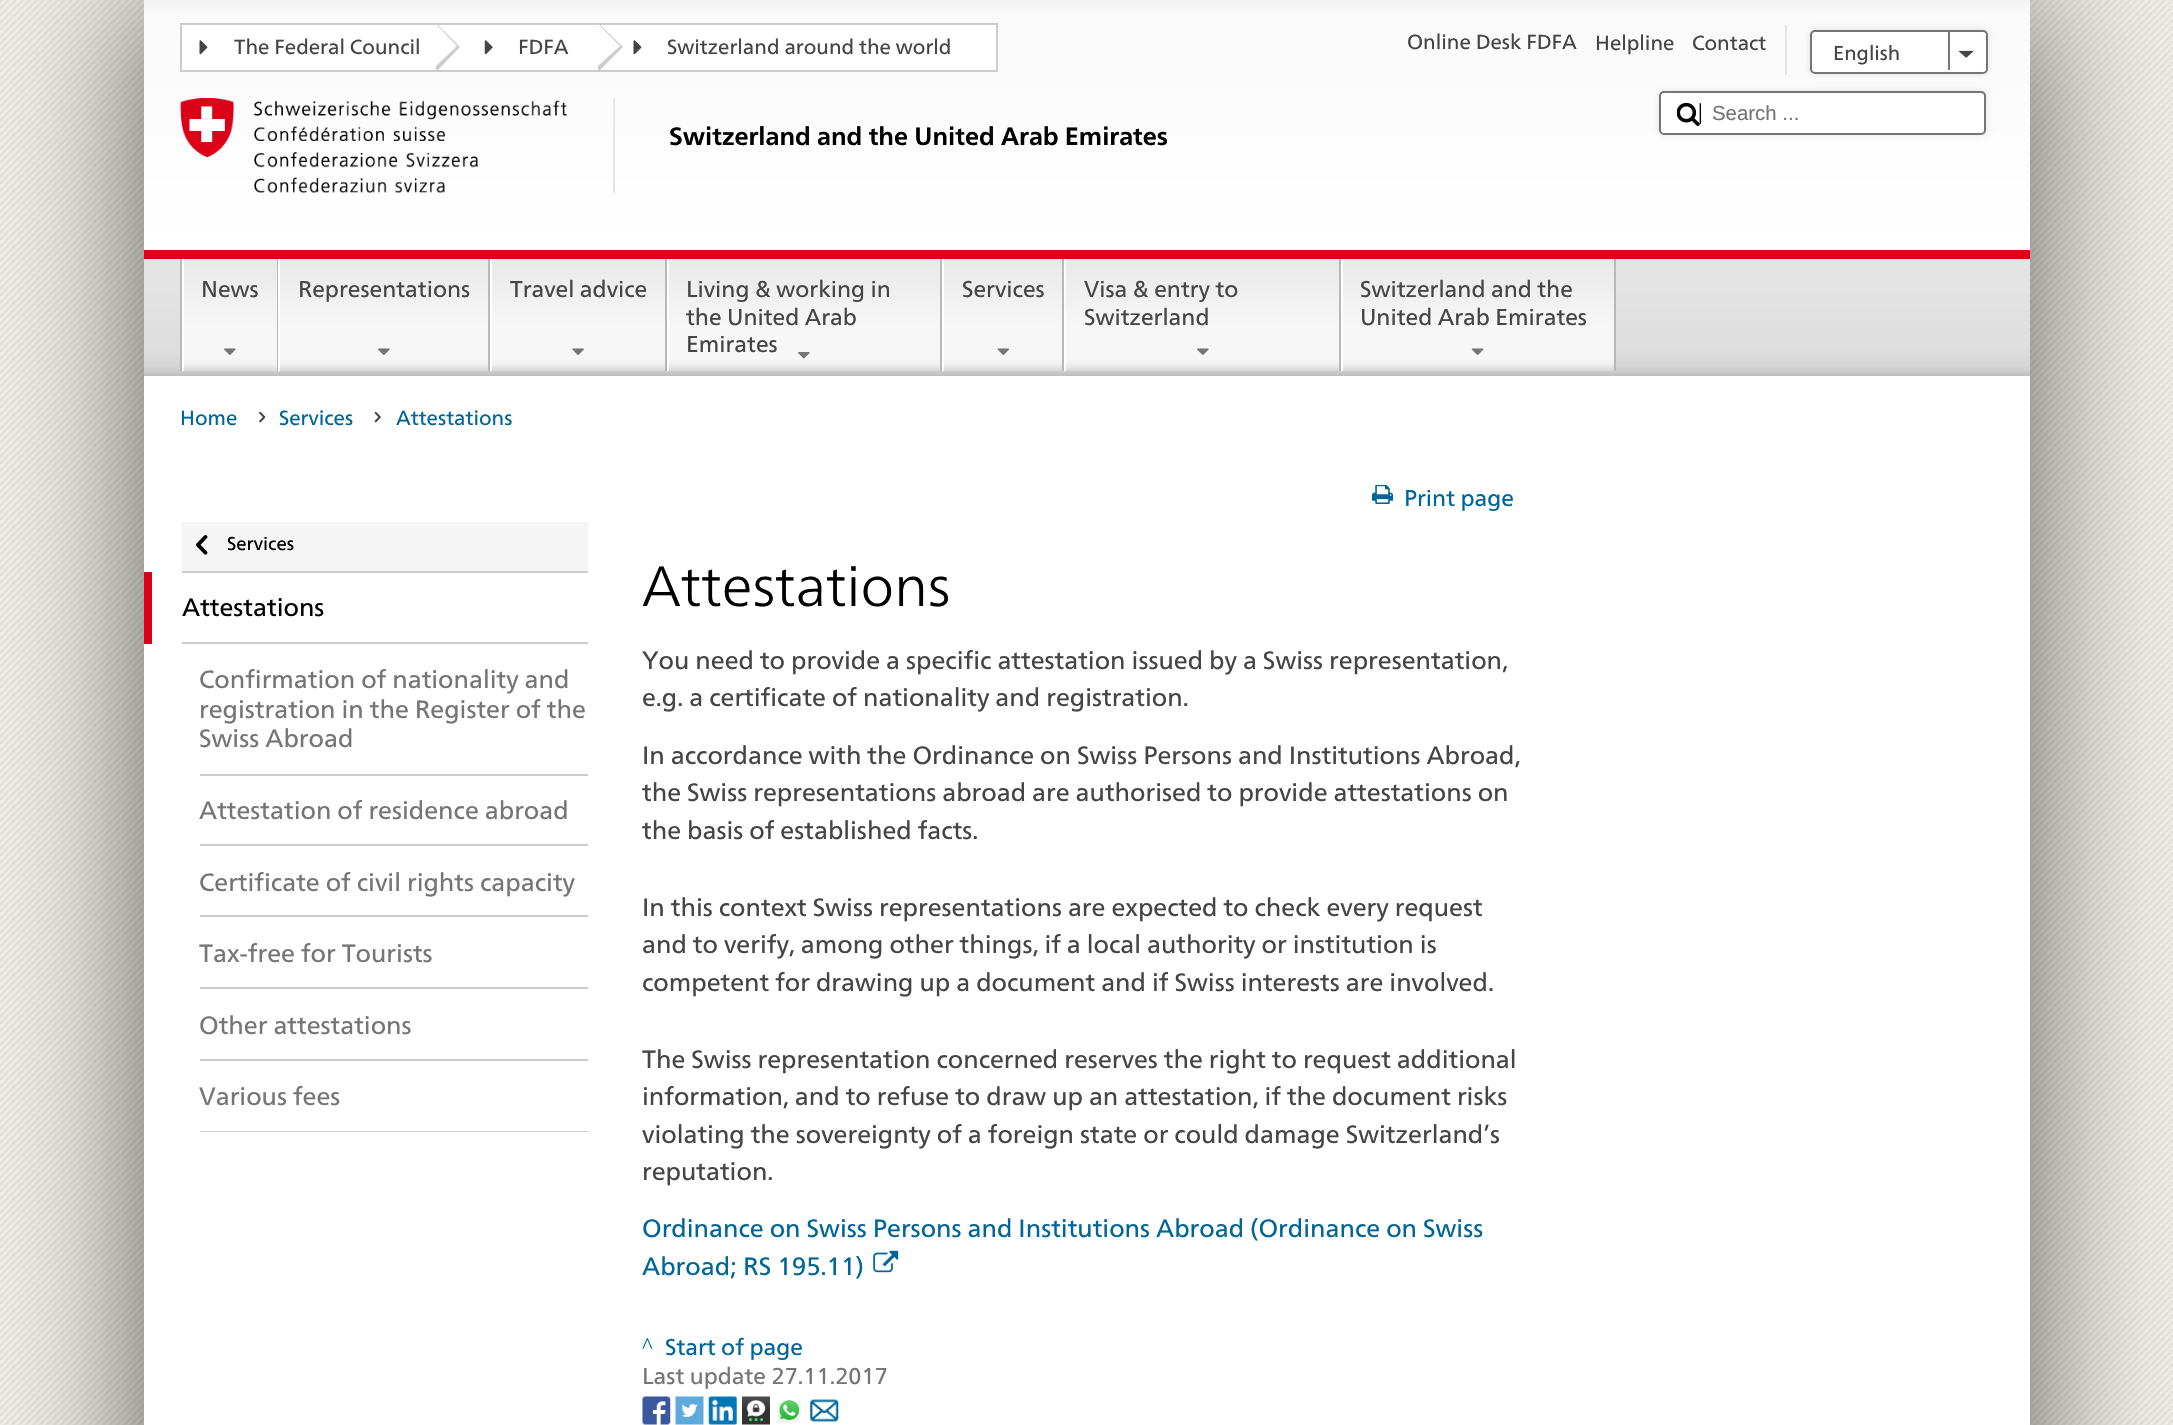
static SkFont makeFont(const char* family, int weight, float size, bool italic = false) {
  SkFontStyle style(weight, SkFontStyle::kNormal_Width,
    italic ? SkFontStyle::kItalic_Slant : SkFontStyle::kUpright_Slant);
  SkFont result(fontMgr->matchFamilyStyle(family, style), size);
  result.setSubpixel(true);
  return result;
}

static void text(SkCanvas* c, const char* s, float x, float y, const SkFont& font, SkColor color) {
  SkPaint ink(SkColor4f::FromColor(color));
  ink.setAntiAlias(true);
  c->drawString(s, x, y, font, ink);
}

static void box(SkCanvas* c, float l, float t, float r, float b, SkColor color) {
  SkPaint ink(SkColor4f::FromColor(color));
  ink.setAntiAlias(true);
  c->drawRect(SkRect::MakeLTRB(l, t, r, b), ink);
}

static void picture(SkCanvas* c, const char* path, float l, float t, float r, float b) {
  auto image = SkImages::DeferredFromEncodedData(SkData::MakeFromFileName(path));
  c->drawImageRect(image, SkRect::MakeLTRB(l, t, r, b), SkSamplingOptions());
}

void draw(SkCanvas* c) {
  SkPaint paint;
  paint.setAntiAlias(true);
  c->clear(0xffffffff);
  picture(c, "img_01.png", 0, 0, 2173, 1425);
  paint.setColor(0x99000000);
  paint.setMaskFilter(SkMaskFilter::MakeBlur(kNormal_SkBlurStyle, 68));
  c->drawRect(SkRect::MakeLTRB(144, 0, 2030, 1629), paint);
  paint.setMaskFilter(nullptr);
  box(c, 144, 376, 2030, 1425, 0xffffffff);
  {
    const SkColor colors[] = {0xfff2f2f2, 0xfffafafa, 0xffffffff};
    const float stops[] = {0, 0.07f, 1};
    const SkPoint ends[] = {{1087, 0}, {1087, 250}};
    paint.setShader(SkGradientShader::MakeLinear(ends, colors, stops, 3, SkTileMode::kClamp));
    paint.setAlpha(255);
  }
  c->drawRect(SkRect::MakeLTRB(144, 0, 2030, 250), paint);
  paint.setShader(nullptr);
  paint.setColor(0xffffffff);
  c->drawRect(SkRect::MakeLTRB(181, 24, 997, 71), paint);
  paint.setStyle(SkPaint::kStroke_Style);
  paint.setStrokeWidth(2);
  paint.setColor(0xffcccccc);
  c->drawRect(SkRect::MakeLTRB(181, 24, 997, 71), paint);
  paint.setStyle(SkPaint::kFill_Style);
  c->drawPath(SkPathBuilder().moveTo(436, 72).lineTo(436, 23).lineTo(460, 47).close().detach(), paint);
  picture(c, "img_02.png", 199, 40, 208, 55);
  SkFont face1 = makeFont("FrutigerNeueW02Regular", 400, 20.4f);
  text(c, "The Federal Council", 234, 54, face1, 0xff454545);
  paint.setColor(0xffffffff);
  c->drawPath(SkPathBuilder().moveTo(436, 66).lineTo(436, 24).lineTo(457, 46).close().detach(), paint);
  paint.setColor(0xffcccccc);
  c->drawPath(SkPathBuilder().moveTo(598, 72).lineTo(598, 23).lineTo(623, 47).close().detach(), paint);
  picture(c, "img_03.png", 484, 40, 493, 55);
  text(c, "FDFA", 518, 54, face1, 0xff454545);
  paint.setColor(0xffffffff);
  c->drawPath(SkPathBuilder().moveTo(598, 66).lineTo(598, 24).lineTo(620, 46).close().detach(), paint);
  picture(c, "img_02.png", 633, 40, 642, 55);
  text(c, "Switzerland around the world", 667, 54, face1, 0xff454545);
  text(c, "Online Desk FDFA", 1407, 49, face1, 0xff454545);
  text(c, "Helpline", 1595, 50, face1, 0xff454545);
  text(c, "Contact", 1692, 50, face1, 0xff454545);
  box(c, 1785, 25, 1787, 75, 0xffe5e5e5);
  paint.setColor(0x1a000000);
  paint.setMaskFilter(SkMaskFilter::MakeBlur(kNormal_SkBlurStyle, 3.5f));
  c->drawRoundRect(SkRect::MakeLTRB(1810, 30, 1988, 74), 5, 5, paint);
  paint.setMaskFilter(nullptr);
  paint.setColor(0xffffffff);
  c->drawRoundRect(SkRect::MakeLTRB(1811, 31, 1987, 73), 4, 4, paint);
  paint.setStyle(SkPaint::kStroke_Style);
  paint.setColor(0xff757575);
  c->drawRoundRect(SkRect::MakeLTRB(1811, 31, 1987, 73), 4, 4, paint);
  SkFont face2 = makeFont("FrutigerNeueW02Regular", 400, 20);
  text(c, "English", 1833, 60, face2, 0xff454545);
  picture(c, "img_04.png", 1958, 50, 1974, 58);
  box(c, 1948, 30, 1950, 70, 0xff757575);
  paint.setStyle(SkPaint::kFill_Style);
  paint.setColor(0x1a000000);
  paint.setMaskFilter(SkMaskFilter::MakeBlur(kNormal_SkBlurStyle, 3.5f));
  c->drawRoundRect(SkRect::MakeLTRB(1659, 91, 1986, 135), 5, 5, paint);
  paint.setMaskFilter(nullptr);
  paint.setColor(0xffffffff);
  c->drawRoundRect(SkRect::MakeLTRB(1660, 92, 1985, 134), 4, 4, paint);
  paint.setStyle(SkPaint::kStroke_Style);
  paint.setColor(0xff757575);
  c->drawRoundRect(SkRect::MakeLTRB(1660, 92, 1985, 134), 4, 4, paint);
  picture(c, "img_05.png", 1677, 102, 1701, 126);
  SkFont face3 = makeFont("Liberation Sans", 400, 20.4f);
  text(c, "Search ...", 1712, 120, face3, 0xff757575);
  picture(c, "img_06.png", 180, 98, 567, 193);
  box(c, 613, 98, 615, 193, 0xffe5e5e5);
  SkFont face4 = makeFont("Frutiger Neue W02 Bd", 700, 24.95f);
  text(c, "Switzerland and the United Arab Emirates", 669, 145, face4, 0xff000000);
  paint.setStyle(SkPaint::kFill_Style);
  {
    const SkColor colors[] = {0xffe4e4e4, 0xffe2e2e2, 0xffdddddd, 0xffd5d5d5, 0xffcfcfcf, 0xffbebebe};
    const float stops[] = {0, 0.39f, 0.79f, 0.91f, 0.95f, 1};
    const SkPoint ends[] = {{1087, 259}, {1087, 376}};
    paint.setShader(SkGradientShader::MakeLinear(ends, colors, stops, 6, SkTileMode::kClamp));
    paint.setAlpha(255);
  }
  c->drawRect(SkRect::MakeLTRB(144, 259, 2030, 376), paint);
  box(c, 144, 250, 2030, 259, 0xffdc0018);
  box(c, 180, 259, 182, 371, 0xffb8b8b8);
  {
    const SkColor colors[] = {0xffe8e8e8, 0xfff7f7f7, 0xfff7f7f7, 0xfff5f5f5, 0xffececec, 0xffd7d7d7};
    const float stops[] = {0, 0.61f, 0.89f, 0.91f, 0.95f, 1};
    const SkPoint ends[] = {{230, 259}, {230, 371}};
    paint.setShader(SkGradientShader::MakeLinear(ends, colors, stops, 6, SkTileMode::kClamp));
    paint.setAlpha(255);
  }
  c->drawRect(SkRect::MakeLTRB(184, 259, 277, 371), paint);
  box(c, 277, 259, 278, 371, 0xffb8b8b8);
  box(c, 182, 259, 184, 371, 0xffffffff);
  SkFont face5 = makeFont("FrutigerNeueW02Regular", 400, 22.75f);
  text(c, "News", 201, 297, face5, 0xff454545);
  picture(c, "img_07.png", 224, 348, 236, 355);
  {
    const SkColor colors[] = {0xffe8e8e8, 0xfff7f7f7, 0xfff7f7f7, 0xfff5f5f5, 0xffececec, 0xffd7d7d7};
    const float stops[] = {0, 0.61f, 0.89f, 0.91f, 0.95f, 1};
    const SkPoint ends[] = {{384, 259}, {384, 371}};
    paint.setShader(SkGradientShader::MakeLinear(ends, colors, stops, 6, SkTileMode::kClamp));
    paint.setAlpha(255);
  }
  c->drawRect(SkRect::MakeLTRB(280, 259, 488, 371), paint);
  box(c, 488, 259, 490, 371, 0xffb8b8b8);
  box(c, 278, 259, 280, 371, 0xffffffff);
  text(c, "Representations", 298, 297, face5, 0xff454545);
  picture(c, "img_07.png", 378, 348, 390, 355);
  {
    const SkColor colors[] = {0xffe8e8e8, 0xfff7f7f7, 0xfff7f7f7, 0xfff5f5f5, 0xffececec, 0xffd7d7d7};
    const float stops[] = {0, 0.61f, 0.89f, 0.91f, 0.95f, 1};
    const SkPoint ends[] = {{578, 259}, {578, 371}};
    paint.setShader(SkGradientShader::MakeLinear(ends, colors, stops, 6, SkTileMode::kClamp));
    paint.setAlpha(255);
  }
  c->drawRect(SkRect::MakeLTRB(492, 259, 665, 371), paint);
  box(c, 665, 259, 667, 371, 0xffb8b8b8);
  box(c, 490, 259, 492, 371, 0xffffffff);
  text(c, "Travel advice", 510, 297, face5, 0xff454545);
  picture(c, "img_08.png", 572, 348, 584, 355);
  {
    const SkColor colors[] = {0xffe8e8e8, 0xfff7f7f7, 0xfff7f7f7, 0xfff5f5f5, 0xffececec, 0xffd7d7d7};
    const float stops[] = {0, 0.61f, 0.89f, 0.91f, 0.95f, 1};
    const SkPoint ends[] = {{804, 259}, {804, 371}};
    paint.setShader(SkGradientShader::MakeLinear(ends, colors, stops, 6, SkTileMode::kClamp));
    paint.setAlpha(255);
  }
  c->drawRect(SkRect::MakeLTRB(669, 259, 940, 371), paint);
  box(c, 940, 259, 942, 371, 0xffb8b8b8);
  box(c, 667, 259, 669, 371, 0xffffffff);
  text(c, "Living & working in", 686, 297, face5, 0xff454545);
  text(c, "the United Arab", 686, 325, face5, 0xff454545);
  text(c, "Emirates", 686, 352, face5, 0xff454545);
  picture(c, "img_09.png", 798, 352, 810, 359);
  {
    const SkColor colors[] = {0xffe8e8e8, 0xfff7f7f7, 0xfff7f7f7, 0xfff5f5f5, 0xffececec, 0xffd7d7d7};
    const float stops[] = {0, 0.61f, 0.89f, 0.91f, 0.95f, 1};
    const SkPoint ends[] = {{1003, 259}, {1003, 371}};
    paint.setShader(SkGradientShader::MakeLinear(ends, colors, stops, 6, SkTileMode::kClamp));
    paint.setAlpha(255);
  }
  c->drawRect(SkRect::MakeLTRB(944, 259, 1062, 371), paint);
  box(c, 1062, 259, 1064, 371, 0xffb8b8b8);
  box(c, 942, 259, 944, 371, 0xffffffff);
  text(c, "Services", 962, 297, face5, 0xff454545);
  picture(c, "img_10.png", 997, 348, 1010, 355);
  {
    const SkColor colors[] = {0xffe8e8e8, 0xfff7f7f7, 0xfff7f7f7, 0xfff5f5f5, 0xffececec, 0xffd7d7d7};
    const float stops[] = {0, 0.61f, 0.89f, 0.91f, 0.95f, 1};
    const SkPoint ends[] = {{1202, 259}, {1202, 371}};
    paint.setShader(SkGradientShader::MakeLinear(ends, colors, stops, 6, SkTileMode::kClamp));
    paint.setAlpha(255);
  }
  c->drawRect(SkRect::MakeLTRB(1066, 259, 1339, 371), paint);
  box(c, 1339, 259, 1341, 371, 0xffb8b8b8);
  box(c, 1064, 259, 1066, 371, 0xffffffff);
  text(c, "Visa & entry to", 1084, 297, face5, 0xff454545);
  text(c, "Switzerland", 1084, 325, face5, 0xff454545);
  picture(c, "img_07.png", 1197, 348, 1209, 355);
  {
    const SkColor colors[] = {0xffe8e8e8, 0xfff7f7f7, 0xfff7f7f7, 0xfff5f5f5, 0xffececec, 0xffd7d7d7};
    const float stops[] = {0, 0.61f, 0.89f, 0.91f, 0.95f, 1};
    const SkPoint ends[] = {{1478, 259}, {1478, 371}};
    paint.setShader(SkGradientShader::MakeLinear(ends, colors, stops, 6, SkTileMode::kClamp));
    paint.setAlpha(255);
  }
  c->drawRect(SkRect::MakeLTRB(1343, 259, 1614, 371), paint);
  box(c, 1614, 259, 1616, 371, 0xffb8b8b8);
  box(c, 1341, 259, 1343, 371, 0xffffffff);
  text(c, "Switzerland and the", 1360, 297, face5, 0xff454545);
  text(c, "United Arab Emirates", 1360, 325, face5, 0xff454545);
  picture(c, "img_11.png", 1471, 348, 1484, 355);
  text(c, "Home", 180, 425, face1, 0xff006699);
  picture(c, "img_12.png", 259, 411, 266, 423);
  text(c, "Services", 279, 425, face1, 0xff006699);
  picture(c, "img_13.png", 374, 411, 381, 423);
  text(c, "Attestations", 396, 425, face1, 0xff006699);
  box(c, 182, 522, 588, 571, 0xfff5f5f5);
  box(c, 182, 571, 588, 573, 0xffcccccc);
  picture(c, "img_14.png", 196, 535, 208, 555);
  SkFont face6 = makeFont("FrutigerNeueW02Regular", 400, 18.5f);
  text(c, "Services", 227, 550, face6, 0xff000000);
  box(c, 144, 572, 152, 644, 0xffdc0018);
  box(c, 182, 642, 588, 644, 0xffcccccc);
  SkFont face7 = makeFont("FrutigerNeueW02Regular", 400, 24.95f);
  text(c, "Attestations", 182, 616, face7, 0xff000000);
  box(c, 200, 774, 588, 776, 0xffcccccc);
  text(c, "Confirmation of nationality and", 199, 688, face7, 0xff757575);
  text(c, "registration in the Register of the", 199, 718, face7, 0xff757575);
  text(c, "Swiss Abroad", 199, 747, face7, 0xff757575);
  box(c, 200, 844, 588, 846, 0xffcccccc);
  text(c, "Attestation of residence abroad", 199, 819, face7, 0xff757575);
  box(c, 200, 915, 588, 917, 0xffcccccc);
  text(c, "Certificate of civil rights capacity", 199, 891, face7, 0xff757575);
  box(c, 200, 987, 588, 989, 0xffcccccc);
  text(c, "Tax-free for Tourists", 199, 962, face7, 0xff757575);
  box(c, 200, 1059, 588, 1061, 0xffcccccc);
  text(c, "Other attestations", 199, 1034, face7, 0xff757575);
  box(c, 200, 1131, 588, 1132, 0xffcccccc);
  text(c, "Various fees", 199, 1105, face7, 0xff757575);
  picture(c, "img_15.png", 1372, 485, 1394, 504);
  text(c, "Print page", 1404, 506, face5, 0xff006699);
  SkFont face8 = makeFont("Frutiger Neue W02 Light", 300, 56.75f);
  text(c, "Attestations", 642, 606, face8, 0xff000000);
  text(c, "You need to provide a specific attestation issued by a Swiss representation,", 642, 669, face7, 0xff454545);
  text(c, "e.g. a certificate of nationality and registration.", 642, 706, face7, 0xff454545);
  text(c, "In accordance with the Ordinance on Swiss Persons and Institutions Abroad,", 642, 764, face7, 0xff454545);
  text(c, "the Swiss representations abroad are authorised to provide attestations on", 642, 801, face7, 0xff454545);
  text(c, "the basis of established facts.", 642, 839, face7, 0xff454545);
  text(c, "In this context Swiss representations are expected to check every request", 642, 916, face7, 0xff454545);
  text(c, "and to verify, among other things, if a local authority or institution is", 642, 953, face7, 0xff454545);
  text(c, "competent for drawing up a document and if Swiss interests are involved.", 642, 991, face7, 0xff454545);
  text(c, "The Swiss representation concerned reserves the right to request additional", 642, 1068, face7, 0xff454545);
  text(c, "information, and to refuse to draw up an attestation, if the document risks", 642, 1105, face7, 0xff454545);
  text(c, "violating the sovereignty of a foreign state or could damage Switzerland’s", 642, 1143, face7, 0xff454545);
  text(c, "reputation.", 642, 1180, face7, 0xff454545);
  text(c, "Ordinance on Swiss Persons and Institutions Abroad (Ordinance on Swiss", 642, 1237, face7, 0xff006699);
  text(c, "Abroad; RS 195.11)", 642, 1275, face7, 0xff006699);
  picture(c, "img_16.png", 873, 1250, 899, 1273);
  SkFont face9 = makeFont("Liberation Serif", 400, 22.75f);
  text(c, "^", 642, 1353, face9, 0xff006699);
  text(c, "Start of page", 665, 1355, face5, 0xff006699);
  text(c, "Last update 27.11.2017", 642, 1384, face5, 0xff757575);
  picture(c, "img_17.png", 642, 1396, 671, 1425);
  picture(c, "img_18.png", 675, 1396, 704, 1425);
  picture(c, "img_19.png", 708, 1396, 737, 1425);
  picture(c, "img_20.png", 742, 1396, 770, 1425);
  picture(c, "img_21.png", 777, 1399, 802, 1423);
  picture(c, "img_22.png", 810, 1399, 839, 1422);
}
